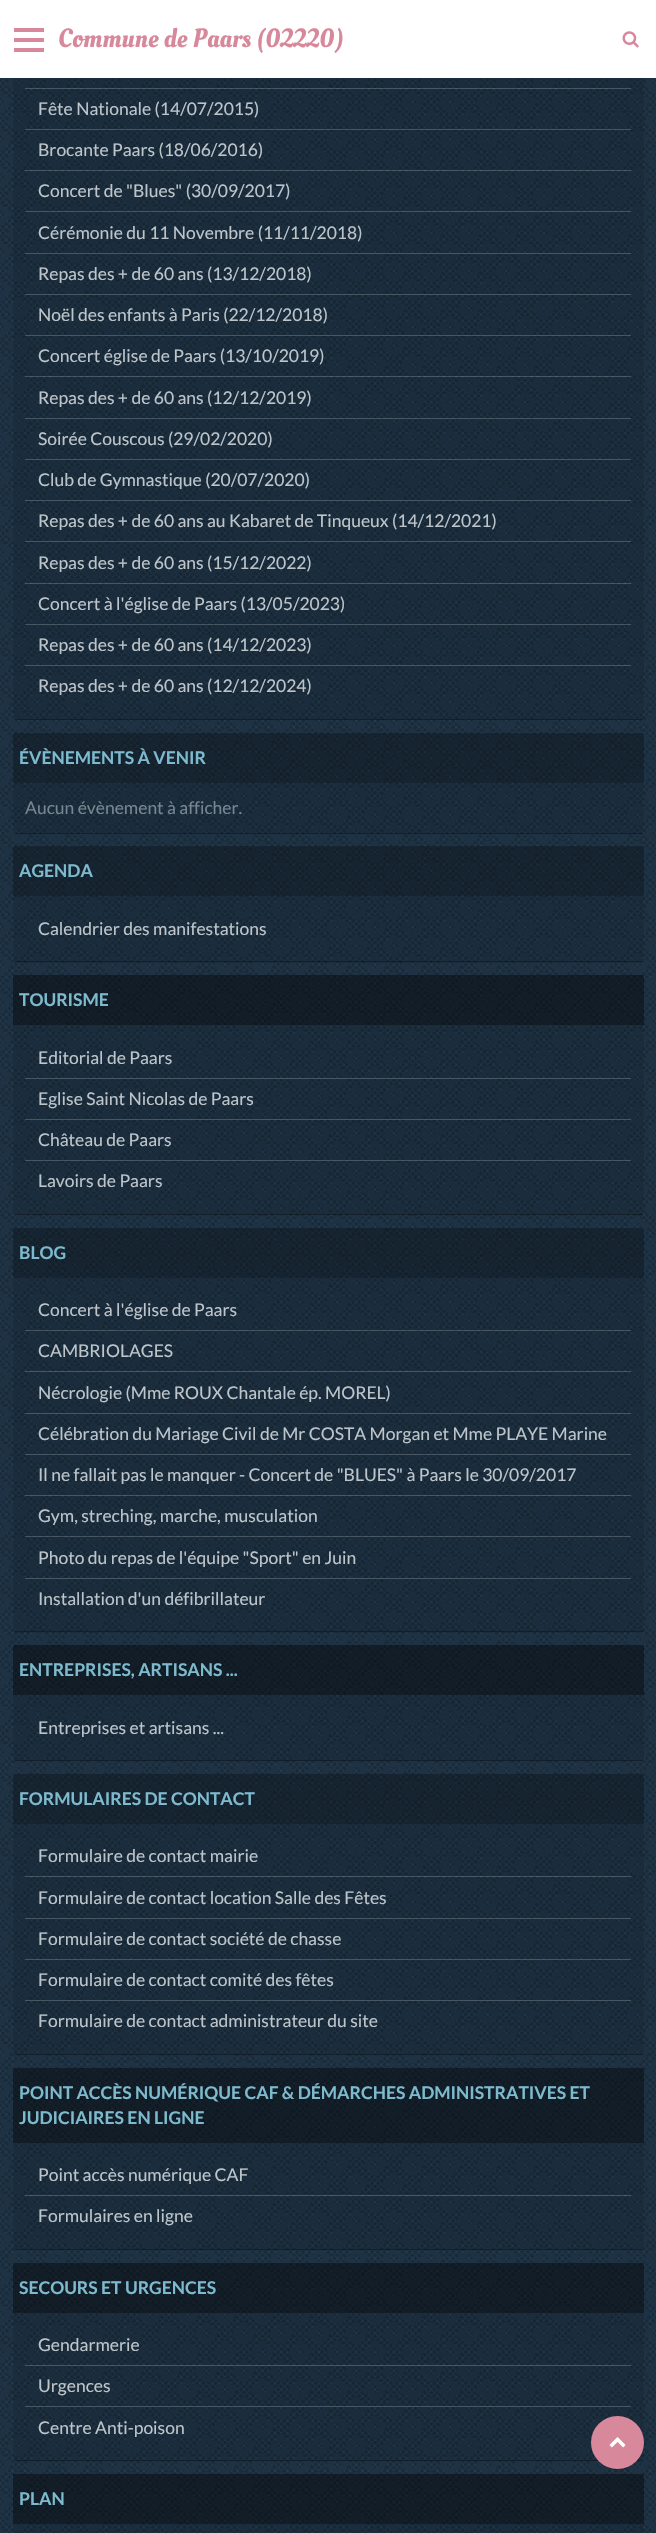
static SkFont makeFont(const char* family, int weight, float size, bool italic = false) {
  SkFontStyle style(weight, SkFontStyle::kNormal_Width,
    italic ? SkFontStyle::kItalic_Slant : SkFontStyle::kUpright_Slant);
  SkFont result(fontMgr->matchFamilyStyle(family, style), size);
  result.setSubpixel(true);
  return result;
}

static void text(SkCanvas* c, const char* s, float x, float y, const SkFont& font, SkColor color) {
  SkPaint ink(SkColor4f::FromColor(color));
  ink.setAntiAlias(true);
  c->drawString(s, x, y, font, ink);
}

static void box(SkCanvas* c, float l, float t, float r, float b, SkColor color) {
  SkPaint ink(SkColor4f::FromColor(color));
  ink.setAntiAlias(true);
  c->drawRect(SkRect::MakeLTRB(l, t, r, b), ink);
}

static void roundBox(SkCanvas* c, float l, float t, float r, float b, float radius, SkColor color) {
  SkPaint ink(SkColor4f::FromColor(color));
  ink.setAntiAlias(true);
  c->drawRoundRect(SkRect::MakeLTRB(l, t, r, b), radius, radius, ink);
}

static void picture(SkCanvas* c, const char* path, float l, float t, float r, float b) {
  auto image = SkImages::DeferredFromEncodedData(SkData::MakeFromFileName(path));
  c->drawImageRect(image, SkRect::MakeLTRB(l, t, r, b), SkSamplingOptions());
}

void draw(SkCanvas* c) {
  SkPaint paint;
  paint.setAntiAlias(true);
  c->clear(0xff233b50);
  picture(c, "img_02.png", 0, 78, 656, 2533);
  roundBox(c, 13, -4, 644, 720, 4, 0x1a000000);
  box(c, 0, 0, 656, 78, 0xffffffff);
  box(c, 14, 38, 44, 42, 0xffd8889b);
  box(c, 14, 28, 44, 32, 0xffd8889b);
  box(c, 14, 48, 44, 52, 0xffd8889b);
  SkFont face1 = makeFont("Oleo Script", 400, 26.25f);
  text(c, "Commune de Paars (02220)", 58, 47, face1, 0xffd8889b);
  picture(c, "img_01.png", 622, 31, 639, 48);
  box(c, 15, 719, 643, 720, 0x4d000000);
  box(c, 25, 88, 631, 89, 0x33ffffff);
  box(c, 25, 129, 631, 130, 0x33ffffff);
  SkFont face2 = makeFont("Lato", 400, 17.5f);
  text(c, "Fête Nationale (14/07/2015)", 38, 115, face2, 0xffbdc5cb);
  box(c, 25, 170, 631, 171, 0x33ffffff);
  text(c, "Brocante Paars (18/06/2016)", 38, 156, face2, 0xffbdc5cb);
  box(c, 25, 211, 631, 212, 0x33ffffff);
  text(c, "Concert de \"Blues\" (30/09/2017)", 38, 197, face2, 0xffbdc5cb);
  box(c, 25, 253, 631, 254, 0x33ffffff);
  text(c, "Cérémonie du 11 Novembre (11/11/2018)", 38, 239, face2, 0xffbdc5cb);
  box(c, 25, 294, 631, 295, 0x33ffffff);
  text(c, "Repas des + de 60 ans (13/12/2018)", 38, 280, face2, 0xffbdc5cb);
  box(c, 25, 335, 631, 336, 0x33ffffff);
  text(c, "Noël des enfants à Paris (22/12/2018)", 38, 321, face2, 0xffbdc5cb);
  box(c, 25, 376, 631, 377, 0x33ffffff);
  text(c, "Concert église de Paars (13/10/2019)", 38, 362, face2, 0xffbdc5cb);
  box(c, 25, 418, 631, 419, 0x33ffffff);
  text(c, "Repas des + de 60 ans (12/12/2019)", 38, 404, face2, 0xffbdc5cb);
  box(c, 25, 459, 631, 460, 0x33ffffff);
  text(c, "Soirée Couscous (29/02/2020)", 38, 445, face2, 0xffbdc5cb);
  box(c, 25, 500, 631, 501, 0x33ffffff);
  text(c, "Club de Gymnastique (20/07/2020)", 38, 486, face2, 0xffbdc5cb);
  box(c, 25, 541, 631, 542, 0x33ffffff);
  text(c, "Repas des + de 60 ans au Kabaret de Tinqueux (14/12/2021)", 38, 527, face2, 0xffbdc5cb);
  box(c, 25, 583, 631, 584, 0x33ffffff);
  text(c, "Repas des + de 60 ans (15/12/2022)", 38, 569, face2, 0xffbdc5cb);
  box(c, 25, 624, 631, 625, 0x33ffffff);
  text(c, "Concert à l'église de Paars (13/05/2023)", 38, 610, face2, 0xffbdc5cb);
  box(c, 25, 665, 631, 666, 0x33ffffff);
  text(c, "Repas des + de 60 ans (14/12/2023)", 38, 651, face2, 0xffbdc5cb);
  text(c, "Repas des + de 60 ans (12/12/2024)", 38, 692, face2, 0xffbdc5cb);
  roundBox(c, 13, 733, 644, 834, 4, 0x1a000000);
  box(c, 15, 833, 643, 834, 0x4d000000);
  box(c, 13, 733, 644, 783, 0x33000000);
  SkFont face3 = makeFont("Lato", 700, 17.5f);
  text(c, "ÉVÈNEMENTS À VENIR", 19, 764, face3, 0xff7dbace);
  text(c, "Aucun évènement à afficher.", 25, 814, face2, 0xff798692);
  roundBox(c, 13, 846, 644, 963, 4, 0x1a000000);
  box(c, 15, 961, 643, 962, 0x4d000000);
  box(c, 13, 846, 644, 896, 0x33000000);
  text(c, "AGENDA", 19, 877, face3, 0xff7dbace);
  text(c, "Calendrier des manifestations", 38, 935, face2, 0xffbdc5cb);
  roundBox(c, 13, 975, 644, 1215, 4, 0x1a000000);
  box(c, 15, 1214, 643, 1215, 0x4d000000);
  box(c, 13, 975, 644, 1025, 0x33000000);
  box(c, 13, 975, 644, 1025, 0x33000000);
  text(c, "TOURISME", 19, 1006, face3, 0xff7dbace);
  box(c, 25, 1078, 631, 1079, 0x33ffffff);
  text(c, "Editorial de Paars", 38, 1064, face2, 0xffbdc5cb);
  box(c, 25, 1119, 631, 1120, 0x33ffffff);
  text(c, "Eglise Saint Nicolas de Paars", 38, 1105, face2, 0xffbdc5cb);
  box(c, 25, 1160, 631, 1161, 0x33ffffff);
  text(c, "Château de Paars", 38, 1146, face2, 0xffbdc5cb);
  text(c, "Lavoirs de Paars", 38, 1187, face2, 0xffbdc5cb);
  roundBox(c, 13, 1228, 644, 1633, 4, 0x1a000000);
  box(c, 15, 1631, 643, 1632, 0x4d000000);
  box(c, 13, 1228, 644, 1278, 0x33000000);
  text(c, "BLOG", 19, 1259, face3, 0xff7dbace);
  box(c, 25, 1330, 631, 1331, 0x33ffffff);
  text(c, "Concert à l'église de Paars", 38, 1316, face2, 0xffbdc5cb);
  box(c, 25, 1371, 631, 1372, 0x33ffffff);
  text(c, "CAMBRIOLAGES", 38, 1357, face2, 0xffbdc5cb);
  box(c, 25, 1413, 631, 1414, 0x33ffffff);
  text(c, "Nécrologie (Mme ROUX Chantale ép. MOREL)", 38, 1399, face2, 0xffbdc5cb);
  box(c, 25, 1454, 631, 1455, 0x33ffffff);
  text(c, "Célébration du Mariage Civil de Mr COSTA Morgan et Mme PLAYE Marine", 38, 1440, face2, 0xffbdc5cb);
  box(c, 25, 1495, 631, 1496, 0x33ffffff);
  text(c, "Il ne fallait pas le manquer - Concert de \"BLUES\" à Paars le 30/09/2017", 38, 1481, face2, 0xffbdc5cb);
  box(c, 25, 1536, 631, 1537, 0x33ffffff);
  text(c, "Gym, streching, marche, musculation", 38, 1522, face2, 0xffbdc5cb);
  box(c, 25, 1578, 631, 1579, 0x33ffffff);
  text(c, "Photo du repas de l'équipe \"Sport\" en Juin", 38, 1564, face2, 0xffbdc5cb);
  text(c, "Installation d'un défibrillateur", 38, 1605, face2, 0xffbdc5cb);
  roundBox(c, 13, 1645, 644, 1761, 4, 0x1a000000);
  box(c, 15, 1760, 643, 1761, 0x4d000000);
  box(c, 13, 1645, 644, 1695, 0x33000000);
  box(c, 13, 1645, 644, 1695, 0x33000000);
  text(c, "ENTREPRISES, ARTISANS ...", 19, 1676, face3, 0xff7dbace);
  text(c, "Entreprises et artisans ...", 38, 1734, face2, 0xffbdc5cb);
  roundBox(c, 13, 1774, 644, 2055, 4, 0x1a000000);
  box(c, 15, 2054, 643, 2055, 0x4d000000);
  box(c, 13, 1774, 644, 1824, 0x33000000);
  text(c, "FORMULAIRES DE CONTACT", 19, 1805, face3, 0xff7dbace);
  box(c, 25, 1876, 631, 1877, 0x33ffffff);
  text(c, "Formulaire de contact mairie", 38, 1862, face2, 0xffbdc5cb);
  box(c, 25, 1918, 631, 1919, 0x33ffffff);
  text(c, "Formulaire de contact location Salle des Fêtes", 38, 1904, face2, 0xffbdc5cb);
  box(c, 25, 1959, 631, 1960, 0x33ffffff);
  text(c, "Formulaire de contact société de chasse", 38, 1945, face2, 0xffbdc5cb);
  box(c, 25, 2000, 631, 2001, 0x33ffffff);
  text(c, "Formulaire de contact comité des fêtes", 38, 1986, face2, 0xffbdc5cb);
  text(c, "Formulaire de contact administrateur du site", 38, 2027, face2, 0xffbdc5cb);
  roundBox(c, 13, 2068, 644, 2250, 4, 0x1a000000);
  box(c, 15, 2249, 643, 2250, 0x4d000000);
  box(c, 13, 2068, 644, 2143, 0x33000000);
  box(c, 13, 2068, 644, 2143, 0x33000000);
  text(c, "POINT ACCÈS NUMÉRIQUE CAF & DÉMARCHES ADMINISTRATIVES ET", 19, 2099, face3, 0xff7dbace);
  text(c, "JUDICIAIRES EN LIGNE", 19, 2124, face3, 0xff7dbace);
  box(c, 25, 2195, 631, 2196, 0x33ffffff);
  text(c, "Point accès numérique CAF", 38, 2181, face2, 0xffbdc5cb);
  text(c, "Formulaires en ligne", 38, 2222, face2, 0xffbdc5cb);
  roundBox(c, 13, 2263, 644, 2461, 4, 0x1a000000);
  box(c, 15, 2460, 643, 2461, 0x4d000000);
  box(c, 13, 2263, 644, 2313, 0x33000000);
  box(c, 13, 2263, 644, 2313, 0x33000000);
  text(c, "SECOURS ET URGENCES", 19, 2294, face3, 0xff7dbace);
  box(c, 25, 2365, 631, 2366, 0x33ffffff);
  text(c, "Gendarmerie", 38, 2351, face2, 0xffbdc5cb);
  box(c, 25, 2406, 631, 2407, 0x33ffffff);
  text(c, "Urgences", 38, 2392, face2, 0xffbdc5cb);
  text(c, "Centre Anti-poison", 38, 2434, face2, 0xffbdc5cb);
  roundBox(c, 13, 2474, 644, 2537, 4, 0x1a000000);
  box(c, 13, 2474, 644, 2524, 0x33000000);
  box(c, 13, 2474, 644, 2524, 0x33000000);
  text(c, "PLAN", 19, 2505, face3, 0xff7dbace);
  paint.setColor(0x33000000);
  paint.setMaskFilter(SkMaskFilter::MakeBlur(kNormal_SkBlurStyle, 0.5f));
  c->drawRoundRect(SkRect::MakeLTRB(594, 2423, 641, 2470), 23.5f, 23.5f, paint);
  paint.setMaskFilter(nullptr);
  paint.setColor(0xffd8889b);
  c->drawCircle(617.5f, 2442.5f, 26.5f, paint);
  picture(c, "img_03.png", 609, 2437, 626, 2448);
}
